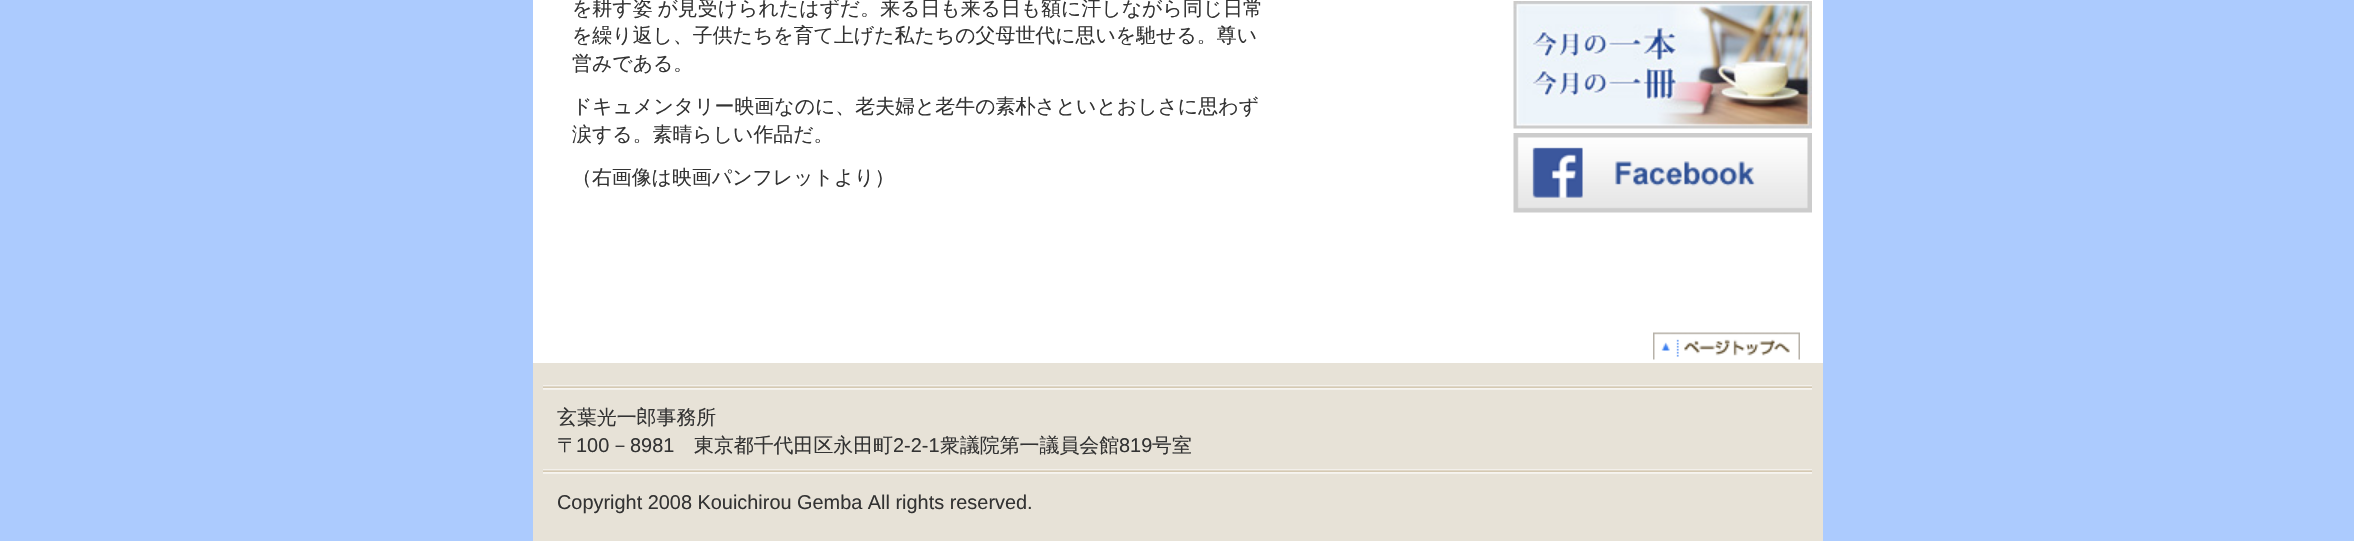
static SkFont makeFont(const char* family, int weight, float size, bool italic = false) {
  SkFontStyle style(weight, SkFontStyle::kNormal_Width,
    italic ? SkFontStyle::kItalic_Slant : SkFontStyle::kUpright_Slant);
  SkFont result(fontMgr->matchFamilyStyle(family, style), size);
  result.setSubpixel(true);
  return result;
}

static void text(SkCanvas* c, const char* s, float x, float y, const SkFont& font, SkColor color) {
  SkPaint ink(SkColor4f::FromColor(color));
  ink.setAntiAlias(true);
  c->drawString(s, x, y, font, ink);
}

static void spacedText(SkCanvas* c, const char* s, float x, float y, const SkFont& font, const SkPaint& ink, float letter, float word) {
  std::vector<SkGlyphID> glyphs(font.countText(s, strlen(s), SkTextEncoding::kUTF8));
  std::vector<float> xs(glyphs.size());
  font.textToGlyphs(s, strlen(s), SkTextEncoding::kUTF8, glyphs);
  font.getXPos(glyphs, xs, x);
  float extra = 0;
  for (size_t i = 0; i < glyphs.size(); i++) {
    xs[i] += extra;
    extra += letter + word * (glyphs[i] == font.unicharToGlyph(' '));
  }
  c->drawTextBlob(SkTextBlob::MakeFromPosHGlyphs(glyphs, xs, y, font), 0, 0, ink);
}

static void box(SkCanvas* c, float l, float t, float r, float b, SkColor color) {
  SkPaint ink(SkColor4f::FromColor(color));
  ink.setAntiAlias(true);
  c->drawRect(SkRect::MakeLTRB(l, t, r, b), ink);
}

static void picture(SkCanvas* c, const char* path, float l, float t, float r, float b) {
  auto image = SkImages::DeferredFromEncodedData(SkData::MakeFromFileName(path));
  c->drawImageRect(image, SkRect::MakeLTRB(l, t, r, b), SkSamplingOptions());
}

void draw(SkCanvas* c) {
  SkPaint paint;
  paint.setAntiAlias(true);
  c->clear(0xffaccbfe);
  box(c, 533, 0, 1823, 363, 0xffffffff);
  SkFont face1 = makeFont("WenQuanYi Zen Hei", 500, 19.9f);
  paint.setColor(0xff333333);
  spacedText(c, "を耕す姿 が見受けられたはずだ。来る日も来る日も額に汗しながら同じ日常", 572, 15, face1, paint, 0, -1);
  text(c, "を繰り返し、子供たちを育て上げた私たちの父母世代に思いを馳せる。尊い", 572, 42, face1, 0xff333333);
  text(c, "営みである。", 572, 70, face1, 0xff333333);
  text(c, "ドキュメンタリー映画なのに、老夫婦と老牛の素朴さといとおしさに思わず", 572, 113, face1, 0xff333333);
  text(c, "涙する。素晴らしい作品だ。", 572, 141, face1, 0xff333333);
  text(c, "（右画像は映画パンフレットより）", 572, 184, face1, 0xff333333);
  picture(c, "img_01.png", 1513, 1, 1812, 129);
  picture(c, "img_02.png", 1513, 133, 1812, 213);
  picture(c, "img_03.png", 1653, 332, 1800, 360);
  box(c, 533, 363, 1823, 541, 0xffe7e2d7);
  picture(c, "img_04.png", 543, 385, 1812, 390);
  text(c, "玄葉光一郎事務所", 557, 424, face1, 0xff333333);
  text(c, "〒", 557, 452, face1, 0xff333333);
  SkFont face2 = makeFont("Liberation Sans", 400, 19.9f);
  text(c, "100", 576, 452, face2, 0xff333333);
  text(c, "－", 610, 452, face1, 0xff333333);
  text(c, "8981", 630, 452, face2, 0xff333333);
  text(c, "東京都千代田区永田町", 694, 452, face1, 0xff333333);
  text(c, "2-2-1", 893, 452, face2, 0xff333333);
  text(c, "衆議院第一議員会館", 940, 452, face1, 0xff333333);
  text(c, "819", 1119, 452, face2, 0xff333333);
  text(c, "号室", 1152, 452, face1, 0xff333333);
  picture(c, "img_05.png", 543, 469, 1812, 474);
  text(c, "Copyright 2008 Kouichirou Gemba All rights reserved.", 557, 509, face2, 0xff333333);
}
